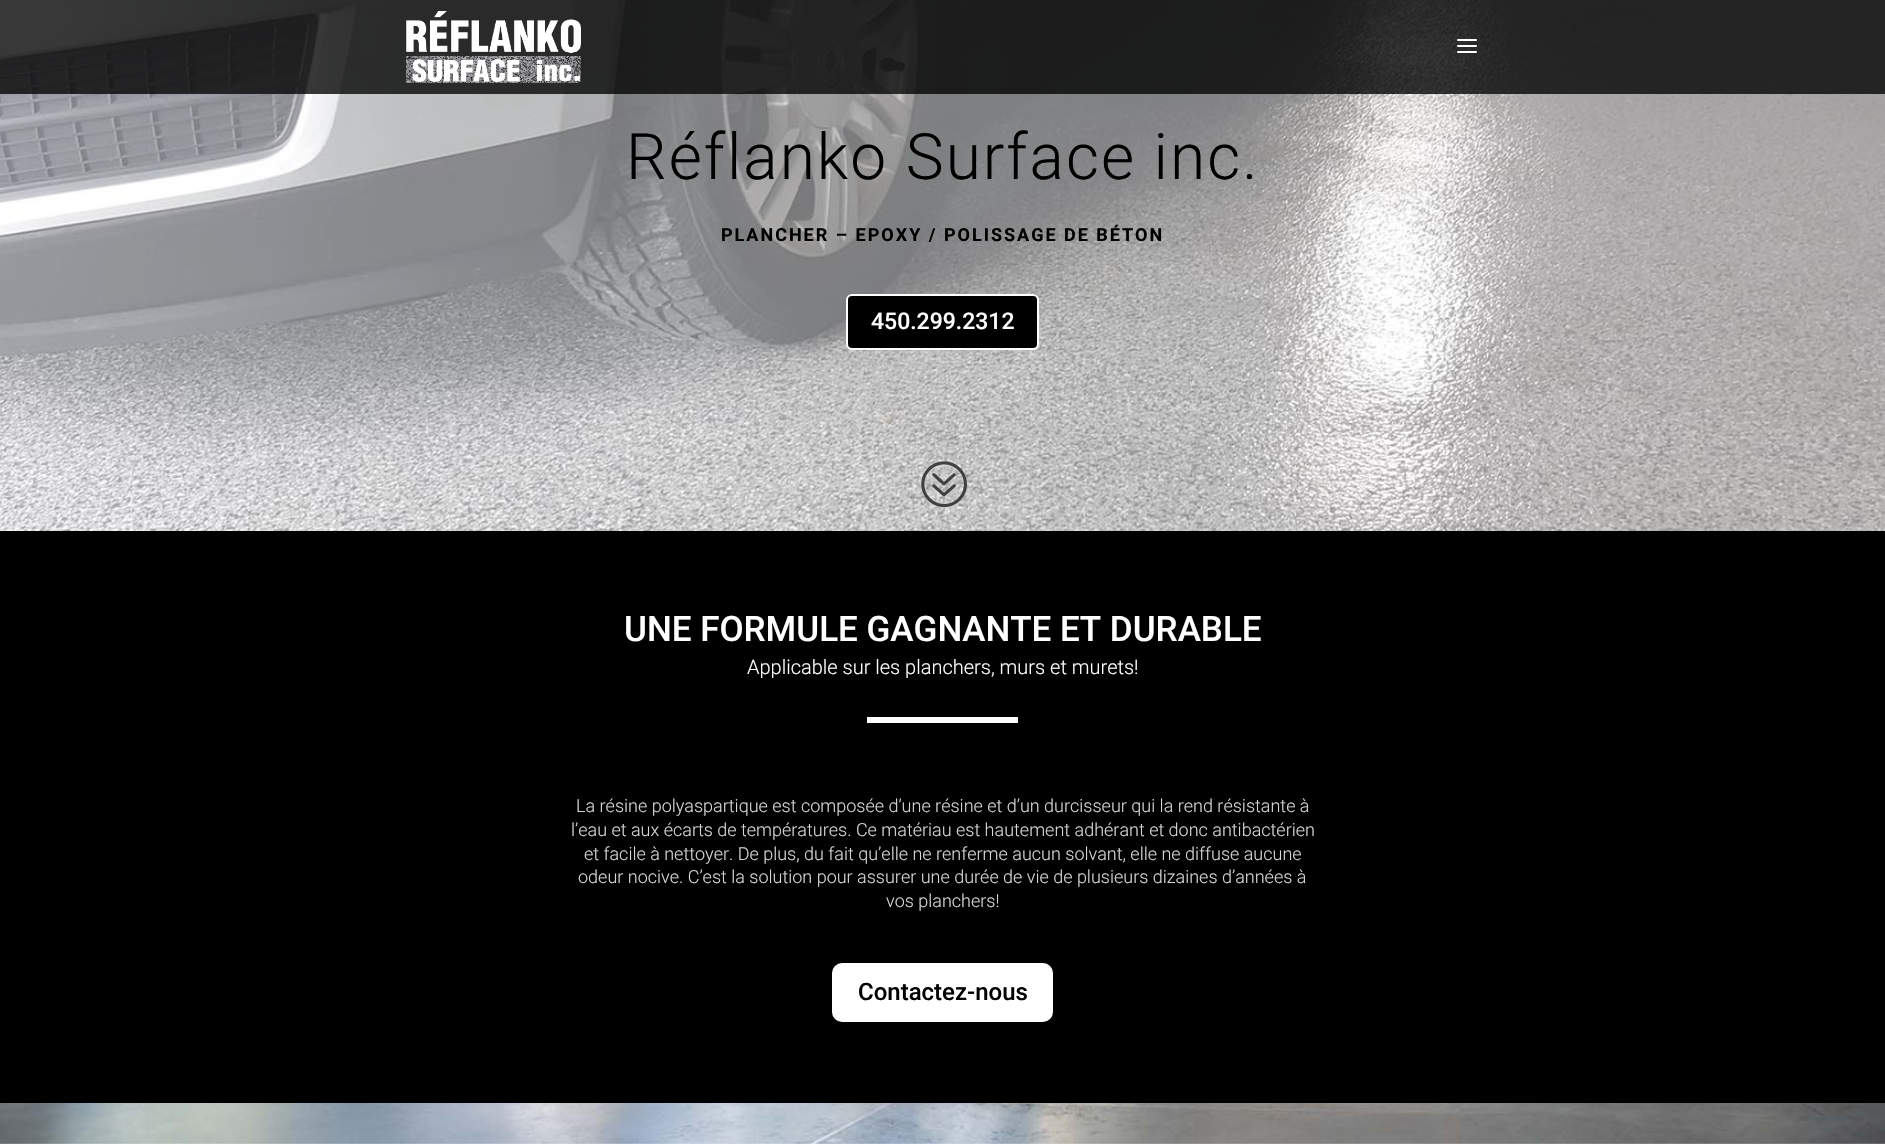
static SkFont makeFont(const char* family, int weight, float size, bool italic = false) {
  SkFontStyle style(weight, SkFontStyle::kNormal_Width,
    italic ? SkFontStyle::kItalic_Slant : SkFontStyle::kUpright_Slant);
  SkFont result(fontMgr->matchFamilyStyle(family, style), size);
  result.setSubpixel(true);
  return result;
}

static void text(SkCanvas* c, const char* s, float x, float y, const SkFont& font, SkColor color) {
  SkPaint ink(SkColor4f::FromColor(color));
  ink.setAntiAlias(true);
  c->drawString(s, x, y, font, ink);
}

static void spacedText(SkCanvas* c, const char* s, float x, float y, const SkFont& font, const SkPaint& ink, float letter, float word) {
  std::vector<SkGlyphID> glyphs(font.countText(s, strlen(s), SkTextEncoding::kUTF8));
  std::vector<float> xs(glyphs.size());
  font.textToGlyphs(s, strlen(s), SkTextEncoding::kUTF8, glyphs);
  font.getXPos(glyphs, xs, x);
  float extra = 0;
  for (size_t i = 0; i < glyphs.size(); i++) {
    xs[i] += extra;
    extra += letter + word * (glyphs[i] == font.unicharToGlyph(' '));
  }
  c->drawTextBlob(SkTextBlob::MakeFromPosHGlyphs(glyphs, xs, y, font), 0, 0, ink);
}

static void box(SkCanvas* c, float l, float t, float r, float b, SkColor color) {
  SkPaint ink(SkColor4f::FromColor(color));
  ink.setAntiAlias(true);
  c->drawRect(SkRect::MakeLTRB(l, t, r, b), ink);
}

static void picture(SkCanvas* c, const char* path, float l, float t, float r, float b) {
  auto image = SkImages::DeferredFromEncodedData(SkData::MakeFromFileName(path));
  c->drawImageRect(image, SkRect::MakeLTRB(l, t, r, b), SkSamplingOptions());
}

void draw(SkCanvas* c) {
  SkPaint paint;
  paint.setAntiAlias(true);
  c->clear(0xffffffff);
  picture(c, "img_03.png", 0, 0, 1885, 531);
  box(c, 0, 0, 1885, 94, 0xc7000000);
  picture(c, "img_01.png", 406, 10, 581, 83);
  picture(c, "img_02.png", 1457, 39, 1477, 53);
  SkFont face1 = makeFont("Roboto", 300, 64);
  paint.setColor(0xff000000);
  spacedText(c, "Réflanko Surface inc.", 626, 179, face1, paint, 2, 0);
  SkFont face2 = makeFont("Roboto", 700, 18);
  spacedText(c, "PLANCHER – EPOXY / POLISSAGE DE BÉTON", 721, 241, face2, paint, 2, 0);
  c->drawRoundRect(SkRect::MakeLTRB(847, 295, 1038, 349), 5, 5, paint);
  paint.setStyle(SkPaint::kStroke_Style);
  paint.setStrokeWidth(2);
  paint.setColor(0xffffffff);
  c->drawRoundRect(SkRect::MakeLTRB(847, 295, 1038, 349), 5, 5, paint);
  SkFont face3 = makeFont("Roboto", 500, 23);
  text(c, "450.299.2312", 871, 329, face3, 0xffffffff);
  picture(c, "img_04.png", 921, 461, 967, 508);
  box(c, 0, 531, 1885, 1103, 0xff000000);
  SkFont face4 = makeFont("Roboto", 500, 35);
  text(c, "UNE FORMULE GAGNANTE ET DURABLE", 624, 641, face4, 0xffffffff);
  SkFont face5 = makeFont("Roboto", 300, 20);
  text(c, "Applicable sur les planchers, murs et murets!", 747, 674, face5, 0xffffffff);
  box(c, 867, 717, 1018, 723, 0xffffffff);
  SkFont face6 = makeFont("Roboto", 300, 18);
  text(c, "La résine polyaspartique est composée d’une résine et d’un durcisseur qui la rend résistante à", 576, 812, face6, 0xffd6d6d6);
  text(c, "l’eau et aux écarts de températures. Ce matériau est hautement adhérant et donc antibactérien", 571, 836, face6, 0xffd6d6d6);
  text(c, "et facile à nettoyer. De plus, du fait qu’elle ne renferme aucun solvant, elle ne diffuse aucune", 584, 860, face6, 0xffd6d6d6);
  text(c, "odeur nocive. C’est la solution pour assurer une durée de vie de plusieurs dizaines d’années à", 578, 883, face6, 0xffd6d6d6);
  text(c, "vos planchers!", 886, 907, face6, 0xffd6d6d6);
  paint.setStyle(SkPaint::kFill_Style);
  c->drawRoundRect(SkRect::MakeLTRB(833, 964, 1052, 1021), 9, 9, paint);
  paint.setStyle(SkPaint::kStroke_Style);
  c->drawRoundRect(SkRect::MakeLTRB(833, 964, 1052, 1021), 9, 9, paint);
  SkFont face7 = makeFont("Roboto", 500, 24);
  text(c, "Contactez-nous", 858, 1000, face7, 0xff000000);
  picture(c, "img_05.png", 0, 1103, 1885, 1144);
}
